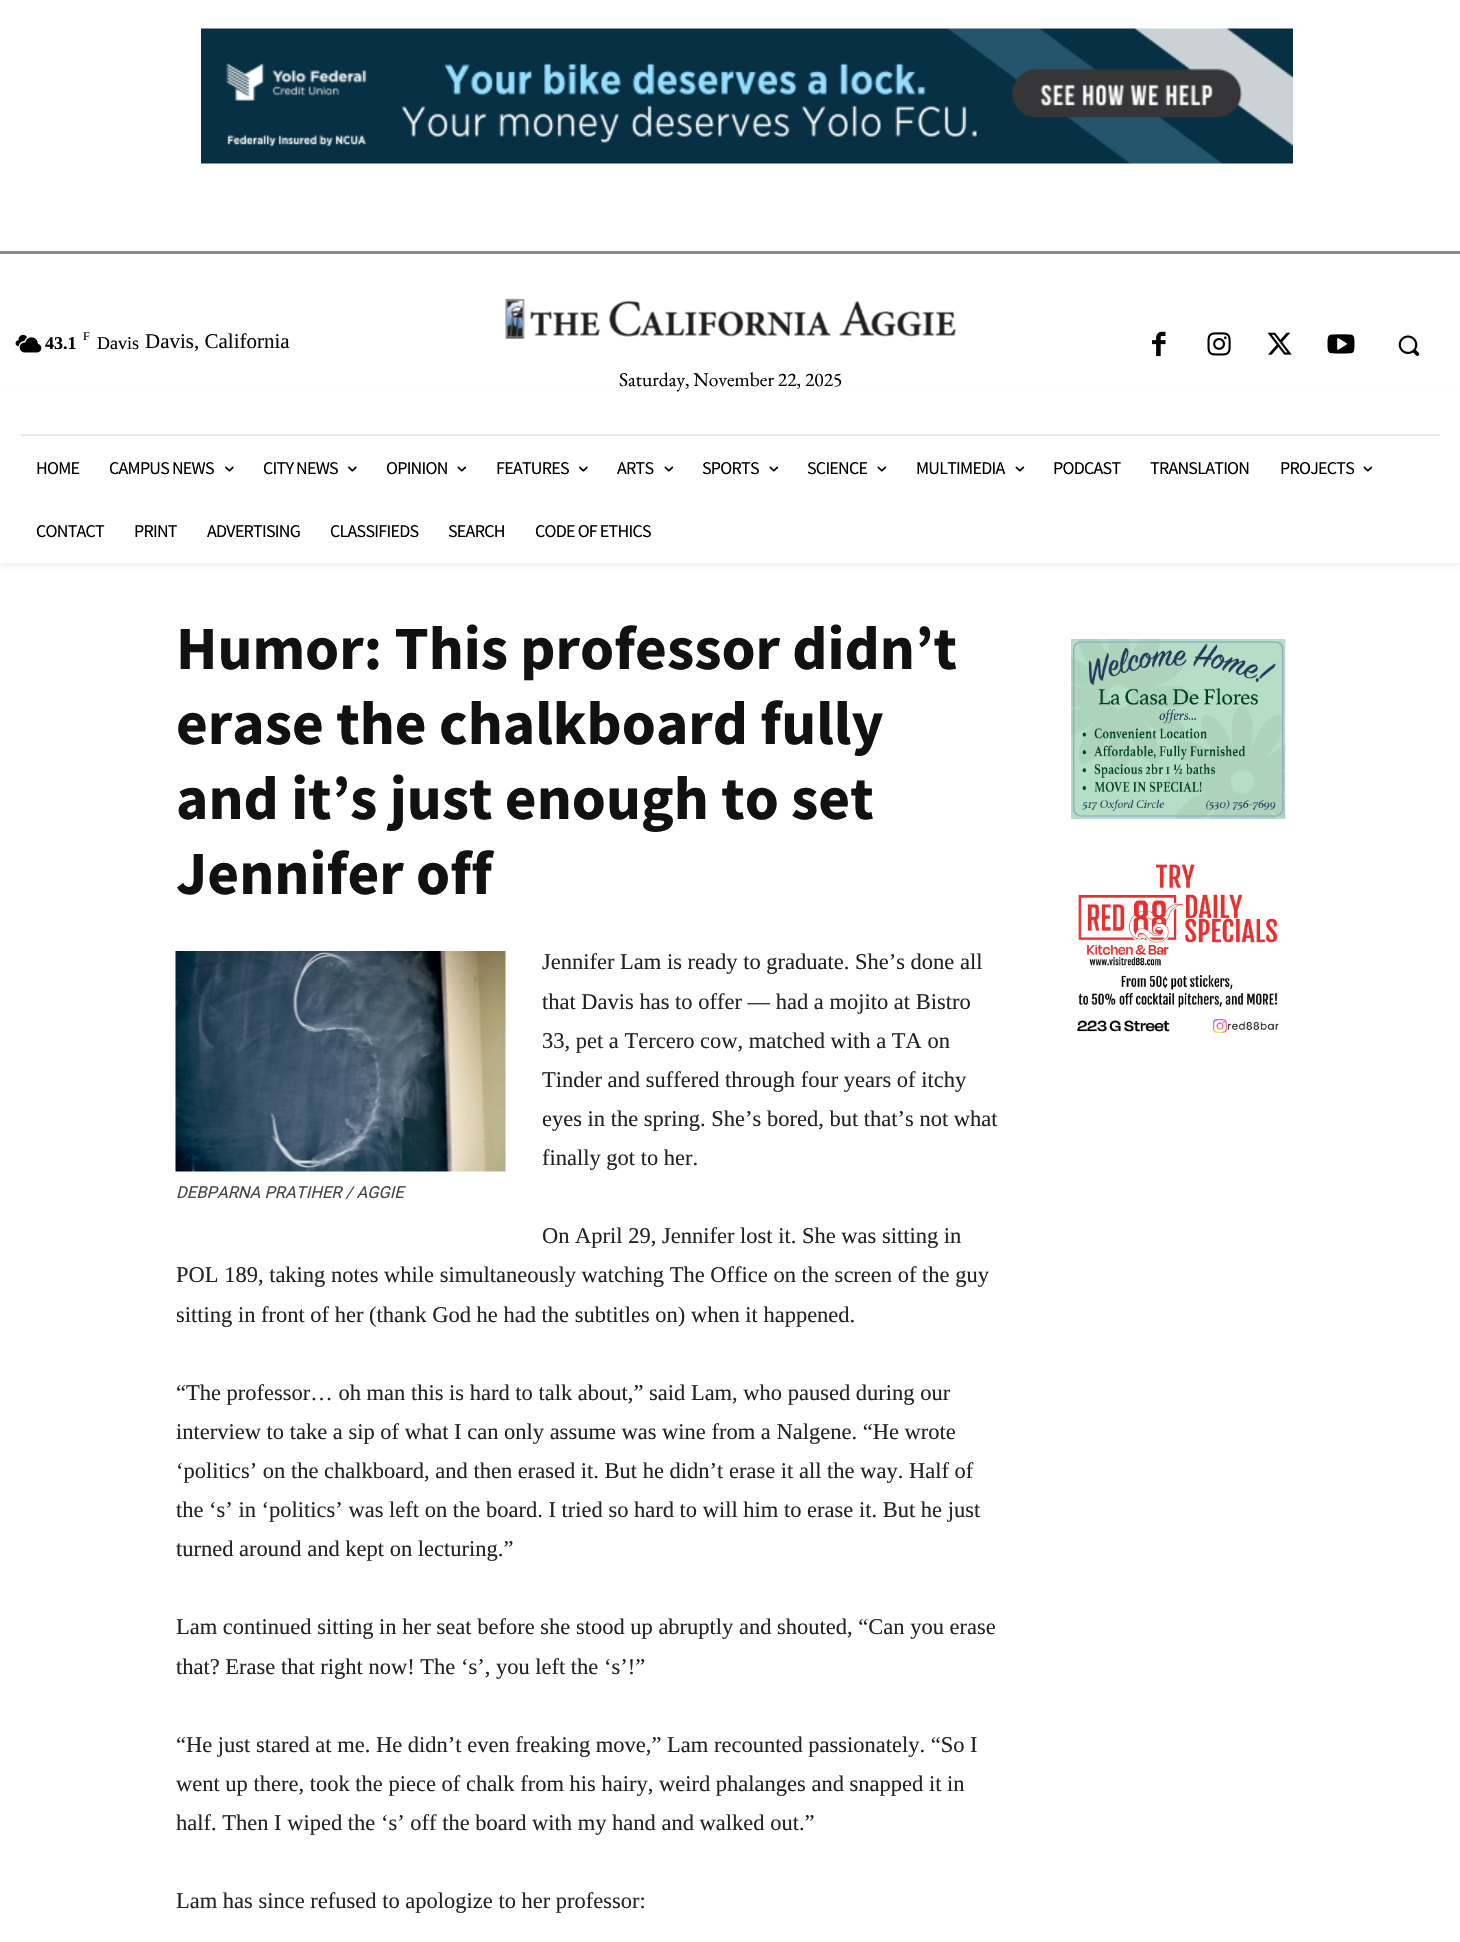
static SkFont makeFont(const char* family, int weight, float size, bool italic = false) {
  SkFontStyle style(weight, SkFontStyle::kNormal_Width,
    italic ? SkFontStyle::kItalic_Slant : SkFontStyle::kUpright_Slant);
  SkFont result(fontMgr->matchFamilyStyle(family, style), size);
  result.setSubpixel(true);
  return result;
}

static void text(SkCanvas* c, const char* s, float x, float y, const SkFont& font, SkColor color) {
  SkPaint ink(SkColor4f::FromColor(color));
  ink.setAntiAlias(true);
  c->drawString(s, x, y, font, ink);
}

static void spacedText(SkCanvas* c, const char* s, float x, float y, const SkFont& font, const SkPaint& ink, float letter, float word) {
  std::vector<SkGlyphID> glyphs(font.countText(s, strlen(s), SkTextEncoding::kUTF8));
  std::vector<float> xs(glyphs.size());
  font.textToGlyphs(s, strlen(s), SkTextEncoding::kUTF8, glyphs);
  font.getXPos(glyphs, xs, x);
  float extra = 0;
  for (size_t i = 0; i < glyphs.size(); i++) {
    xs[i] += extra;
    extra += letter + word * (glyphs[i] == font.unicharToGlyph(' '));
  }
  c->drawTextBlob(SkTextBlob::MakeFromPosHGlyphs(glyphs, xs, y, font), 0, 0, ink);
}

static void box(SkCanvas* c, float l, float t, float r, float b, SkColor color) {
  SkPaint ink(SkColor4f::FromColor(color));
  ink.setAntiAlias(true);
  c->drawRect(SkRect::MakeLTRB(l, t, r, b), ink);
}

static void picture(SkCanvas* c, const char* path, float l, float t, float r, float b) {
  auto image = SkImages::DeferredFromEncodedData(SkData::MakeFromFileName(path));
  c->drawImageRect(image, SkRect::MakeLTRB(l, t, r, b), SkSamplingOptions());
}

void draw(SkCanvas* c) {
  SkPaint paint;
  paint.setAntiAlias(true);
  c->clear(0xffffffff);
  picture(c, "img_01.png", 201, 28, 1293, 164);
  box(c, 0, 251, 1460, 254, 0xff888888);
  picture(c, "img_02.png", 15, 334, 42, 353);
  SkFont face1 = makeFont("Liberation Serif", 400, 12);
  text(c, "F", 83, 340, face1, 0xff000000);
  SkFont face2 = makeFont("Liberation Serif", 700, 18);
  text(c, "43.1", 45, 349, face2, 0xff000000);
  SkFont face3 = makeFont("Liberation Serif", 400, 18);
  text(c, "Davis", 97, 349, face3, 0xff000000);
  SkFont face4 = makeFont("Liberation Serif", 400, 21);
  text(c, "Davis, California", 145, 348, face4, 0xff0a0a0a);
  picture(c, "img_03.png", 1152, 331, 1166, 357);
  picture(c, "img_04.png", 1207, 332, 1231, 356);
  picture(c, "img_05.png", 1267, 332, 1292, 355);
  picture(c, "img_06.png", 1327, 334, 1355, 354);
  picture(c, "img_07.png", 1398, 335, 1420, 356);
  picture(c, "img_08.png", 505, 298, 956, 339);
  SkFont face5 = makeFont("EB Garamond", 400, 19.5f);
  text(c, "Saturday, November 22, 2025", 619, 386, face5, 0xff000000);
  box(c, 21, 434, 1440, 436, 0xffeaeaea);
  c->save();
  c->clipPath(SkPathBuilder(SkPathFillType::kEvenOdd).moveTo(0, 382).lineTo(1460, 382).lineTo(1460, 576).lineTo(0, 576).close().moveTo(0, 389).lineTo(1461, 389).lineTo(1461, 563).lineTo(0, 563).close().detach(), true);
  paint.setColor(0x0f000000);
  paint.setMaskFilter(SkMaskFilter::MakeBlur(kNormal_SkBlurStyle, 3));
  c->drawRect(SkRect::MakeLTRB(0, 392, 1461, 566), paint);
  paint.setMaskFilter(nullptr);
  c->restore();
  SkFont face6 = makeFont("Source Sans Pro", 400, 18);
  paint.setColor(0xff000000);
  spacedText(c, "HOME", 36, 474, face6, paint, -0.75f, 0);
  spacedText(c, "CAMPUS NEWS", 109, 474, face6, paint, -0.75f, 0);
  picture(c, "img_09.png", 225, 466, 234, 472);
  spacedText(c, "CITY NEWS", 263, 474, face6, paint, -0.75f, 0);
  picture(c, "img_09.png", 348, 466, 357, 472);
  spacedText(c, "OPINION", 386, 474, face6, paint, -0.75f, 0);
  picture(c, "img_10.png", 457, 466, 467, 472);
  spacedText(c, "FEATURES", 496, 474, face6, paint, -0.75f, 0);
  picture(c, "img_09.png", 579, 466, 588, 472);
  spacedText(c, "ARTS", 617, 474, face6, paint, -0.75f, 0);
  picture(c, "img_10.png", 664, 466, 674, 472);
  spacedText(c, "SPORTS", 702, 474, face6, paint, -0.75f, 0);
  picture(c, "img_10.png", 769, 466, 779, 472);
  spacedText(c, "SCIENCE", 807, 474, face6, paint, -0.75f, 0);
  picture(c, "img_10.png", 877, 466, 887, 472);
  spacedText(c, "MULTIMEDIA", 916, 474, face6, paint, -0.75f, 0);
  picture(c, "img_10.png", 1015, 466, 1025, 472);
  spacedText(c, "PODCAST", 1053, 474, face6, paint, -0.75f, 0);
  spacedText(c, "TRANSLATION", 1150, 474, face6, paint, -0.75f, 0);
  spacedText(c, "PROJECTS", 1280, 474, face6, paint, -0.75f, 0);
  picture(c, "img_10.png", 1363, 466, 1373, 472);
  spacedText(c, "CONTACT", 36, 537, face6, paint, -0.75f, 0);
  spacedText(c, "PRINT", 134, 537, face6, paint, -0.75f, 0);
  spacedText(c, "ADVERTISING", 207, 537, face6, paint, -0.75f, 0);
  spacedText(c, "CLASSIFIEDS", 330, 537, face6, paint, -0.75f, 0);
  spacedText(c, "SEARCH", 448, 537, face6, paint, -0.75f, 0);
  spacedText(c, "CODE OF ETHICS", 535, 537, face6, paint, -0.75f, 0);
  SkFont face7 = makeFont("Source Sans Pro", 700, 61.5f);
  text(c, "Humor: This professor didn’t", 176, 669, face7, 0xff111111);
  text(c, "erase the chalkboard fully", 176, 744, face7, 0xff111111);
  text(c, "and it’s just enough to set", 176, 819, face7, 0xff111111);
  text(c, "Jennifer off", 176, 894, face7, 0xff111111);
  SkFont face8 = makeFont("Liberation Serif", 400, 22.5f);
  text(c, "Jennifer Lam is ready to graduate. She’s done all", 542, 969, face8, 0xff222222);
  text(c, "that Davis has to offer — had a mojito at Bistro", 542, 1009, face8, 0xff222222);
  text(c, "33, pet a Tercero cow, matched with a TA on", 542, 1048, face8, 0xff222222);
  text(c, "Tinder and suffered through four years of itchy", 542, 1087, face8, 0xff222222);
  text(c, "eyes in the spring. She’s bored, but that’s not what", 542, 1126, face8, 0xff222222);
  text(c, "finally got to her.", 542, 1165, face8, 0xff222222);
  picture(c, "img_11.png", 175, 951, 506, 1172);
  SkFont face9 = makeFont("Roboto", 400, 16.5f, true);
  text(c, "DEBPARNA PRATIHER / AGGIE", 176, 1198, face9, 0xff444444);
  text(c, "On April 29, Jennifer lost it. She was sitting in", 542, 1243, face8, 0xff222222);
  text(c, "POL 189, taking notes while simultaneously watching The Office on the screen of the guy", 176, 1282, face8, 0xff222222);
  text(c, "sitting in front of her (thank God he had the subtitles on) when it happened.", 176, 1322, face8, 0xff222222);
  text(c, "“The professor… oh man this is hard to talk about,” said Lam, who paused during our", 176, 1400, face8, 0xff222222);
  text(c, "interview to take a sip of what I can only assume was wine from a Nalgene. “He wrote", 176, 1439, face8, 0xff222222);
  text(c, "‘politics’ on the chalkboard, and then erased it. But he didn’t erase it all the way. Half of", 176, 1478, face8, 0xff222222);
  text(c, "the ‘s’ in ‘politics’ was left on the board. I tried so hard to will him to erase it. But he just", 176, 1517, face8, 0xff222222);
  text(c, "turned around and kept on lecturing.”", 176, 1556, face8, 0xff222222);
  text(c, "Lam continued sitting in her seat before she stood up abruptly and shouted, “Can you erase", 176, 1634, face8, 0xff222222);
  text(c, "that? Erase that right now! The ‘s’, you left the ‘s’!”", 176, 1674, face8, 0xff222222);
  text(c, "“He just stared at me. He didn’t even freaking move,” Lam recounted passionately. “So I", 176, 1752, face8, 0xff222222);
  text(c, "went up there, took the piece of chalk from his hairy, weird phalanges and snapped it in", 176, 1791, face8, 0xff222222);
  text(c, "half. Then I wiped the ‘s’ off the board with my hand and walked out.”", 176, 1830, face8, 0xff222222);
  text(c, "Lam has since refused to apologize to her professor:", 176, 1908, face8, 0xff222222);
  picture(c, "img_12.png", 1071, 639, 1286, 819);
  picture(c, "img_13.png", 1077, 864, 1279, 1034);
}
